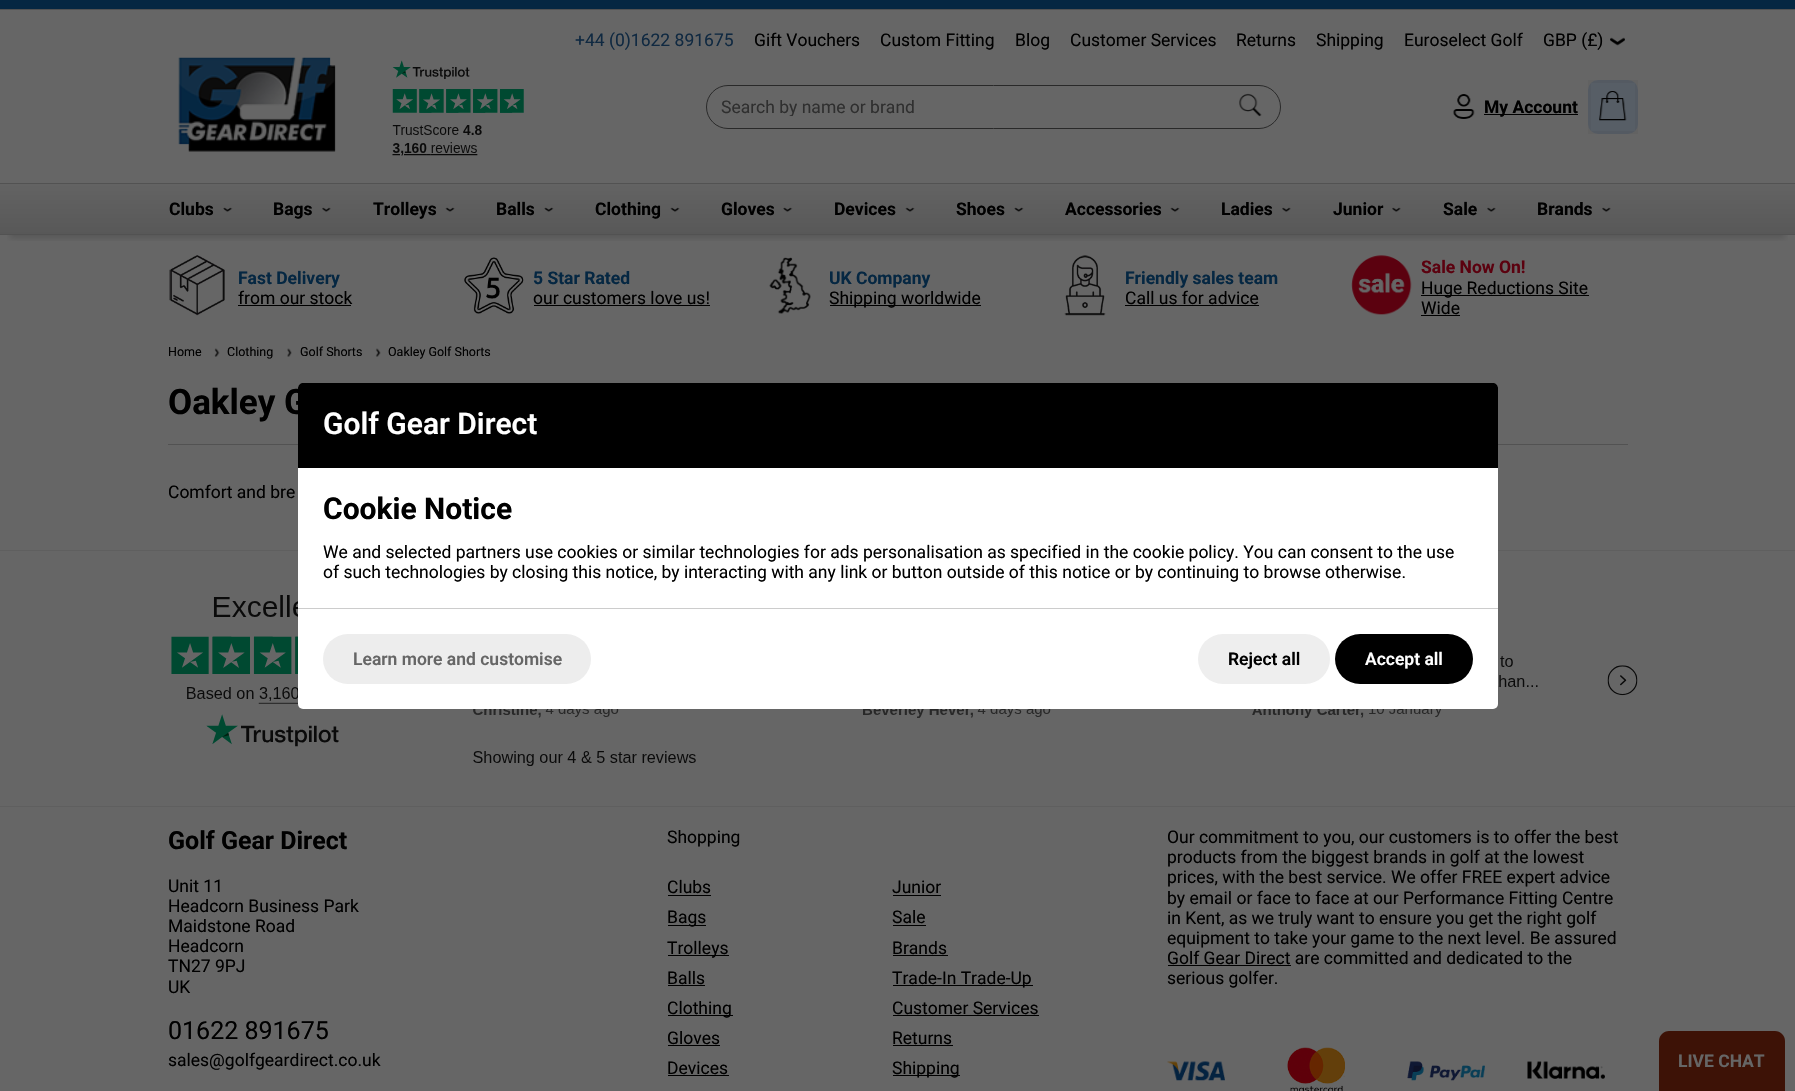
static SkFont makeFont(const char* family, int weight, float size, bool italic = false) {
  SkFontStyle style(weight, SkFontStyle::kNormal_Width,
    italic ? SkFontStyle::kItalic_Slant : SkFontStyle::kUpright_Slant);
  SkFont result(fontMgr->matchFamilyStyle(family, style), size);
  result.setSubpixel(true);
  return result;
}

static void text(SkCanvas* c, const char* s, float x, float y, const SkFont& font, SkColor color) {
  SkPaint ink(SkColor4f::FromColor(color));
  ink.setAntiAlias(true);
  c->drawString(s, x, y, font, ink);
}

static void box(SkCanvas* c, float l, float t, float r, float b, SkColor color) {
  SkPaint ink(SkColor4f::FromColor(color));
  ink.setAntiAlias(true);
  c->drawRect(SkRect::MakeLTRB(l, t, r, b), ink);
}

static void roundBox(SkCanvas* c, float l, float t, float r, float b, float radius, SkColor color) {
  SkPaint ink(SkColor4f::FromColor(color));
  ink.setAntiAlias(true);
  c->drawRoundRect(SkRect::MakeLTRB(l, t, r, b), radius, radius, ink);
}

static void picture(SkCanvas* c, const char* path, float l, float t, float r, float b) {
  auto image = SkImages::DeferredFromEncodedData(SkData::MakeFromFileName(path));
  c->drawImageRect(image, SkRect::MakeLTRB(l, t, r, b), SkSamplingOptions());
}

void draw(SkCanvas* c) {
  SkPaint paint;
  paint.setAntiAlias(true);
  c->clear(0xff666666);
  c->save();
  c->clipRect(SkRect::MakeLTRB(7, 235, 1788, 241));
  paint.setColor(0x26000000);
  paint.setMaskFilter(SkMaskFilter::MakeBlur(kNormal_SkBlurStyle, 3));
  c->drawRect(SkRect::MakeLTRB(10, -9, 1785, 238), paint);
  paint.setMaskFilter(nullptr);
  c->restore();
  box(c, 0, 0, 1795, 9, 0xff052742);
  box(c, 0, 9, 1795, 10, 0xff525252);
  box(c, 0, 234, 1795, 235, 0xff525252);
  SkFont face1 = makeFont("Roboto", 400, 17.5f);
  text(c, "+44 (0)1622 891675", 575, 46, face1, 0xff102941);
  text(c, "Gift Vouchers", 754, 46, face1, 0xff000000);
  text(c, "Custom Fitting", 880, 46, face1, 0xff000000);
  text(c, "Blog", 1015, 46, face1, 0xff000000);
  text(c, "Customer Services", 1070, 46, face1, 0xff000000);
  text(c, "Returns", 1236, 46, face1, 0xff000000);
  text(c, "Shipping", 1316, 46, face1, 0xff000000);
  text(c, "Euroselect Golf", 1404, 46, face1, 0xff000000);
  text(c, "GBP (£)", 1543, 46, face1, 0xff000000);
  picture(c, "img_01.png", 1610, 37, 1625, 46);
  picture(c, "img_02.png", 178, 57, 336, 152);
  picture(c, "img_03.png", 392, 60, 524, 156);
  paint.setStyle(SkPaint::kStroke_Style);
  paint.setStrokeWidth(1);
  paint.setColor(0xff292929);
  c->drawRoundRect(SkRect::MakeLTRB(706.5f, 85.5f, 1280.5f, 128.5f), 21.5f, 21.5f, paint);
  c->save();
  c->clipRect(SkRect::MakeLTRB(721, 96, 1226, 116));
  text(c, "Search by name or brand", 721, 113, face1, 0xff2f2f2f);
  c->restore();
  picture(c, "img_04.png", 1239, 93, 1262, 117);
  picture(c, "img_05.png", 1453, 94, 1475, 119);
  box(c, 1484, 114, 1578, 115, 0xff000000);
  SkFont face2 = makeFont("Roboto", 700, 17.5f);
  text(c, "My Account", 1484, 113, face2, 0xff000000);
  paint.setStyle(SkPaint::kFill_Style);
  {
    const SkColor colors[] = {0xff575e66, 0x4d666666, 0xff575e66};
    const float stops[] = {0.33f, 0.5f, 0.66f};
    const SkPoint ends[] = {{1649, 195}, {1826, 18}};
    paint.setShader(SkGradientShader::MakeLinear(ends, colors, stops, 3, SkTileMode::kClamp));
    paint.setAlpha(255);
  }
  c->drawRoundRect(SkRect::MakeLTRB(1588, 80, 1638, 134), 10, 10, paint);
  paint.setStyle(SkPaint::kStroke_Style);
  paint.setStrokeWidth(3);
  paint.setShader(nullptr);
  paint.setColor(0x0a000000);
  c->drawRect(SkRect::MakeLTRB(1589.5f, 81.5f, 1636.5f, 132.5f), paint);
  picture(c, "img_06.png", 1599, 91, 1627, 121);
  box(c, 0, 183, 1795, 184, 0xff525252);
  paint.setStyle(SkPaint::kFill_Style);
  {
    const SkColor colors[] = {0xff585858, 0xff636363};
    const float stops[] = {0, 1};
    const SkPoint ends[] = {{898, 234}, {898, 184}};
    paint.setShader(SkGradientShader::MakeLinear(ends, colors, stops, 2, SkTileMode::kClamp));
    paint.setAlpha(255);
  }
  c->drawRect(SkRect::MakeLTRB(0, 184, 1795, 234), paint);
  text(c, "Clubs", 169, 215, face2, 0xff000000);
  picture(c, "img_07.png", 223, 207, 233, 212);
  text(c, "Bags", 273, 215, face2, 0xff000000);
  picture(c, "img_08.png", 322, 207, 331, 212);
  text(c, "Trolleys", 373, 215, face2, 0xff000000);
  picture(c, "img_09.png", 445, 207, 455, 212);
  text(c, "Balls", 496, 215, face2, 0xff000000);
  picture(c, "img_10.png", 544, 207, 554, 212);
  text(c, "Clothing", 595, 215, face2, 0xff000000);
  picture(c, "img_11.png", 670, 207, 680, 212);
  text(c, "Gloves", 721, 215, face2, 0xff000000);
  picture(c, "img_12.png", 783, 207, 793, 212);
  text(c, "Devices", 834, 215, face2, 0xff000000);
  picture(c, "img_11.png", 905, 207, 915, 212);
  text(c, "Shoes", 956, 215, face2, 0xff000000);
  picture(c, "img_10.png", 1014, 207, 1024, 212);
  text(c, "Accessories", 1065, 215, face2, 0xff000000);
  picture(c, "img_11.png", 1170, 207, 1180, 212);
  text(c, "Ladies", 1221, 215, face2, 0xff000000);
  picture(c, "img_13.png", 1282, 207, 1291, 212);
  text(c, "Junior", 1333, 215, face2, 0xff000000);
  picture(c, "img_13.png", 1392, 207, 1401, 212);
  text(c, "Sale", 1443, 215, face2, 0xff000000);
  picture(c, "img_13.png", 1487, 207, 1496, 212);
  text(c, "Brands", 1537, 215, face2, 0xff000000);
  picture(c, "img_13.png", 1602, 207, 1611, 212);
  picture(c, "img_14.png", 169, 255, 225, 316);
  text(c, "Fast Delivery", 238, 284, face2, 0xff052742);
  text(c, "from our stock", 238, 304, face1, 0xff000000);
  box(c, 238, 305, 351, 306, 0xff000000);
  picture(c, "img_15.png", 464, 257, 524, 314);
  text(c, "5 Star Rated", 533, 284, face2, 0xff052742);
  text(c, "our customers love us!", 533, 304, face1, 0xff000000);
  box(c, 534, 305, 710, 306, 0xff000000);
  picture(c, "img_16.png", 769, 257, 811, 314);
  text(c, "UK Company", 829, 284, face2, 0xff052742);
  box(c, 830, 305, 981, 306, 0xff000000);
  text(c, "Shipping worldwide", 829, 304, face1, 0xff000000);
  picture(c, "img_17.png", 1064, 255, 1106, 316);
  text(c, "Friendly sales team", 1125, 284, face2, 0xff052742);
  text(c, "Call us for advice", 1125, 304, face1, 0xff000000);
  box(c, 1125, 305, 1259, 306, 0xff000000);
  picture(c, "img_18.png", 1351, 255, 1412, 315);
  text(c, "Sale Now On!", 1421, 273, face2, 0xff5b010f);
  box(c, 1421, 295, 1589, 296, 0xff000000);
  text(c, "Huge Reductions Site", 1421, 294, face1, 0xff000000);
  text(c, "Wide", 1421, 314, face1, 0xff000000);
  box(c, 1421, 315, 1460, 316, 0xff000000);
  SkFont face3 = makeFont("Roboto", 400, 12.5f);
  text(c, "Home", 168, 356, face3, 0xff000000);
  picture(c, "img_19.png", 214, 348, 220, 357);
  text(c, "Clothing", 227, 356, face3, 0xff000000);
  picture(c, "img_20.png", 287, 348, 292, 357);
  text(c, "Golf Shorts", 300, 356, face3, 0xff000000);
  picture(c, "img_21.png", 375, 348, 381, 357);
  text(c, "Oakley Golf Shorts", 388, 356, face3, 0xff000000);
  SkFont face4 = makeFont("Roboto", 700, 35);
  text(c, "Oakley G", 168, 414, face4, 0xff000000);
  box(c, 168, 444, 1628, 445, 0xff525252);
  text(c, "Comfort and bre", 168, 498, face1, 0xff000000);
  box(c, 0, 550, 1795, 551, 0xff5f5f5f);
  picture(c, "img_22.png", 171, 595, 1638, 766);
  roundBox(c, 298, 383, 1498, 709, 5, 0xffffffff);
  paint.setShader(nullptr);
  paint.setColor(0xff000000);
  c->drawPath(SkPathBuilder().moveTo(303, 383).lineTo(1493, 383).cubicTo(1496, 383, 1498, 385, 1498, 388).lineTo(1498, 468).lineTo(298, 468).lineTo(298, 388).cubicTo(298, 385, 300, 383, 303, 383).close().detach(), paint);
  SkFont face5 = makeFont("Roboto", 600, 30);
  text(c, "Golf Gear Direct", 323, 434, face5, 0xffffffff);
  SkFont face6 = makeFont("Roboto", 700, 30);
  text(c, "Cookie Notice", 323, 519, face6, 0xff000000);
  text(c, "We and selected partners use cookies or similar technologies for ads personalisation as specified in the cookie policy. You can consent to the use", 323, 558, face1, 0xff000000);
  text(c, "of such technologies by closing this notice, by interacting with any link or button outside of this notice or by continuing to browse otherwise.", 323, 578, face1, 0xff000000);
  box(c, 298, 608, 1498, 609, 0xffcccccc);
  roundBox(c, 323, 634, 591, 684, 25, 0xffededed);
  SkFont face7 = makeFont("Roboto", 600, 17.5f);
  text(c, "Learn more and customise", 353, 665, face7, 0xff666666);
  roundBox(c, 1198, 634, 1330, 684, 25, 0xffeeeeee);
  text(c, "Reject all", 1228, 665, face7, 0xff000000);
  roundBox(c, 1335, 634, 1473, 684, 25, 0xff000000);
  text(c, "Accept all", 1365, 665, face7, 0xffffffff);
  box(c, 0, 806, 1795, 807, 0xff5f5f5f);
  SkFont face8 = makeFont("Roboto", 700, 25);
  text(c, "Golf Gear Direct", 168, 849, face8, 0xff000000);
  text(c, "Unit 11", 168, 892, face1, 0xff000000);
  text(c, "Headcorn Business Park", 168, 912, face1, 0xff000000);
  text(c, "Maidstone Road", 168, 932, face1, 0xff000000);
  text(c, "Headcorn", 168, 952, face1, 0xff000000);
  text(c, "TN27 9PJ", 168, 972, face1, 0xff000000);
  text(c, "UK", 168, 993, face1, 0xff000000);
  SkFont face9 = makeFont("Roboto", 400, 25);
  text(c, "01622 891675", 168, 1039, face9, 0xff000000);
  text(c, "sales@golfgeardirect.co.uk", 168, 1066, face1, 0xff000000);
  text(c, "Shopping", 667, 843, face1, 0xff000000);
  text(c, "Clubs", 667, 893, face1, 0xff000000);
  box(c, 668, 895, 711, 896, 0xff000000);
  box(c, 668, 925, 706, 926, 0xff000000);
  text(c, "Bags", 667, 923, face1, 0xff000000);
  box(c, 668, 955, 729, 956, 0xff000000);
  text(c, "Trolleys", 667, 954, face1, 0xff000000);
  text(c, "Balls", 667, 984, face1, 0xff000000);
  box(c, 668, 985, 705, 986, 0xff000000);
  box(c, 668, 1015, 733, 1016, 0xff000000);
  text(c, "Clothing", 667, 1014, face1, 0xff000000);
  text(c, "Gloves", 667, 1044, face1, 0xff000000);
  box(c, 668, 1045, 720, 1046, 0xff000000);
  text(c, "Devices", 667, 1074, face1, 0xff000000);
  box(c, 668, 1075, 729, 1076, 0xff000000);
  text(c, "Junior", 892, 893, face1, 0xff000000);
  box(c, 893, 895, 941, 896, 0xff000000);
  text(c, "Sale", 892, 923, face1, 0xff000000);
  box(c, 893, 925, 926, 926, 0xff000000);
  text(c, "Brands", 892, 954, face1, 0xff000000);
  box(c, 893, 955, 948, 956, 0xff000000);
  box(c, 893, 985, 1033, 986, 0xff000000);
  text(c, "Trade-In Trade-Up", 892, 984, face1, 0xff000000);
  text(c, "Customer Services", 892, 1014, face1, 0xff000000);
  box(c, 893, 1015, 1039, 1016, 0xff000000);
  text(c, "Returns", 892, 1044, face1, 0xff000000);
  box(c, 893, 1045, 953, 1046, 0xff000000);
  box(c, 893, 1075, 960, 1076, 0xff000000);
  text(c, "Shipping", 892, 1074, face1, 0xff000000);
  text(c, "Our commitment to you, our customers is to offer the best", 1167, 843, face1, 0xff000000);
  text(c, "products from the biggest brands in golf at the lowest", 1167, 863, face1, 0xff000000);
  text(c, "prices, with the best service. We offer FREE expert advice", 1167, 883, face1, 0xff000000);
  text(c, "by email or face to face at our Performance Fitting Centre", 1167, 904, face1, 0xff000000);
  text(c, "in Kent, as we truly want to ensure you get the right golf", 1167, 924, face1, 0xff000000);
  text(c, "equipment to take your game to the next level. Be assured", 1167, 944, face1, 0xff000000);
  text(c, "Golf Gear Direct are committed and dedicated to the", 1167, 964, face1, 0xff000000);
  box(c, 1168, 965, 1291, 966, 0xff000000);
  text(c, "serious golfer.", 1167, 984, face1, 0xff000000);
  picture(c, "img_23.png", 1167, 1061, 1225, 1081);
  picture(c, "img_24.png", 1287, 1047, 1345, 1091);
  picture(c, "img_25.png", 1407, 1061, 1485, 1081);
  picture(c, "img_26.png", 1527, 1061, 1605, 1079);
  paint.setColor(0xff3d1206);
  c->drawPath(SkPathBuilder().moveTo(1669, 1031).lineTo(1775, 1031).cubicTo(1780.5f, 1031, 1785, 1035.5f, 1785, 1041).lineTo(1785, 1091).lineTo(1659, 1091).lineTo(1659, 1041).cubicTo(1659, 1035.5f, 1663.5f, 1031, 1669, 1031).close().detach(), paint);
  text(c, "LIVE CHAT", 1678, 1067, face2, 0xff666666);
}
